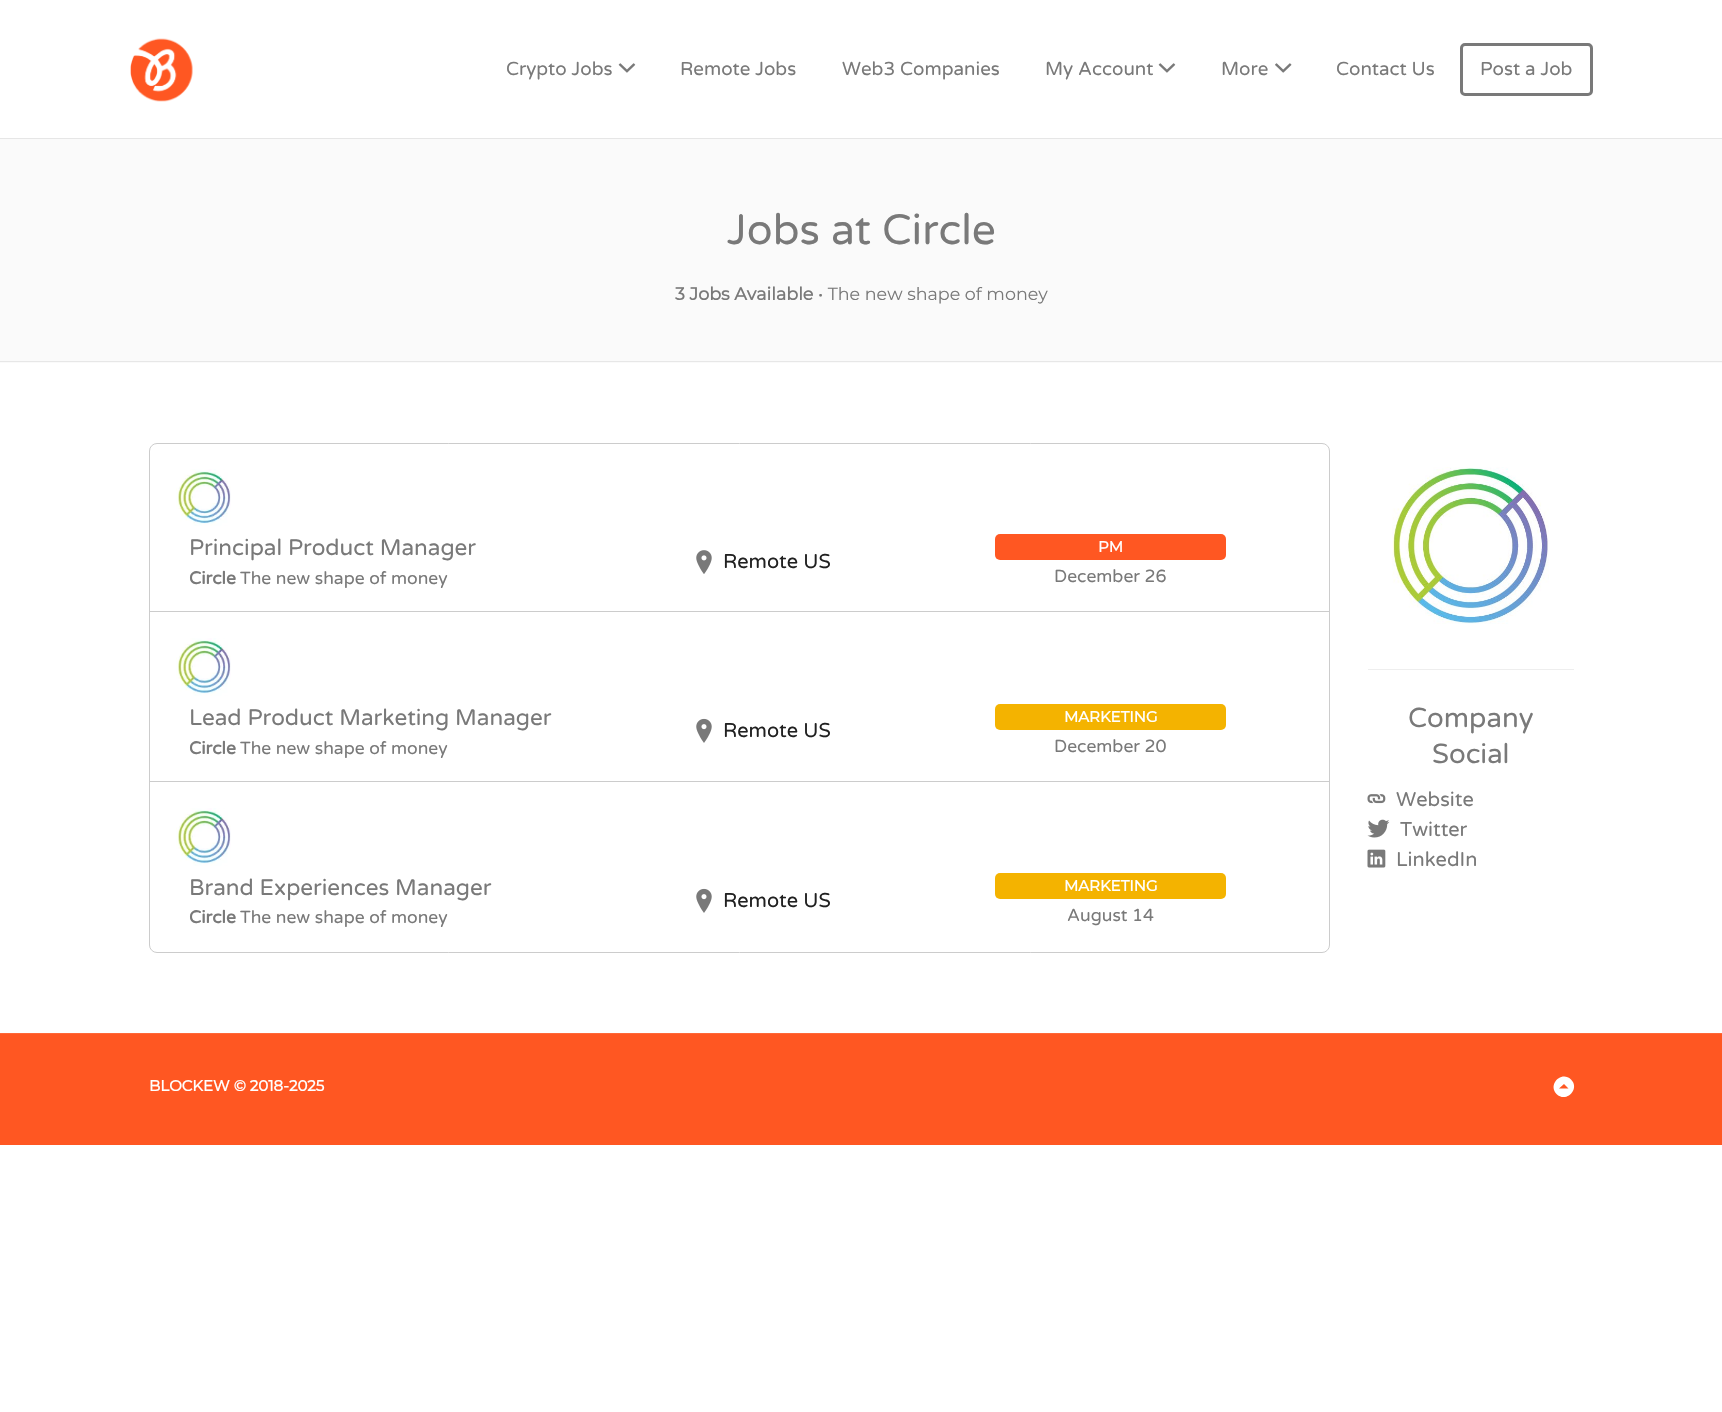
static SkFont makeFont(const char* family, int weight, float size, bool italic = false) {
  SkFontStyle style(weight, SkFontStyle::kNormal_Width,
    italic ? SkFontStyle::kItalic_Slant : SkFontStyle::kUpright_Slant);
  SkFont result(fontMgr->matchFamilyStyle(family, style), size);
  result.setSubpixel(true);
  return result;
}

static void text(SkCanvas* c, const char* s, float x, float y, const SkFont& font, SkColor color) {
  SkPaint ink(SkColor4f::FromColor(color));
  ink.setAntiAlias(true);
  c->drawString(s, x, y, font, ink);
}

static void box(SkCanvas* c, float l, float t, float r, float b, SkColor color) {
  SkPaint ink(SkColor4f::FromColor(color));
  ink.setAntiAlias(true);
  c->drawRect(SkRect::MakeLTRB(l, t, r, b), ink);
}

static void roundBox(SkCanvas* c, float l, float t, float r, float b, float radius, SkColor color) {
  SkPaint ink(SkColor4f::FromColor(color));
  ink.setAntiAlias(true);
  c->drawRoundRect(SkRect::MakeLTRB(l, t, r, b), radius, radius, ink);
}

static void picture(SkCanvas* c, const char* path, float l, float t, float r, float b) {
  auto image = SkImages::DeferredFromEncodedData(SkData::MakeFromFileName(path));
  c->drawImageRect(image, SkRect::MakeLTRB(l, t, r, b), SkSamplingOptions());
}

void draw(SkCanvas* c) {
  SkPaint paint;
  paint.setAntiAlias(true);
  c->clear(0xffffffff);
  box(c, 0, 138, 1722, 139, 0xffe6e6e6);
  picture(c, "img_01.png", 130, 38, 193, 102);
  SkFont face1 = makeFont("Varela Round", 400, 18.75f);
  text(c, "Crypto Jobs", 506, 75, face1, 0xff797979);
  picture(c, "img_02.png", 618, 63, 636, 73);
  text(c, "Remote Jobs", 680, 75, face1, 0xff797979);
  text(c, "Web3 Companies", 842, 75, face1, 0xff797979);
  text(c, "My Account", 1045, 75, face1, 0xff797979);
  picture(c, "img_02.png", 1158, 63, 1176, 73);
  text(c, "More", 1221, 75, face1, 0xff797979);
  picture(c, "img_03.png", 1275, 63, 1292, 73);
  text(c, "Contact Us", 1336, 75, face1, 0xff797979);
  paint.setStyle(SkPaint::kStroke_Style);
  paint.setStrokeWidth(3);
  paint.setColor(0xff797979);
  c->drawRoundRect(SkRect::MakeLTRB(1461.5f, 44.5f, 1591.5f, 94.5f), 3.5f, 3.5f, paint);
  text(c, "Post a Job", 1480, 75, face1, 0xff797979);
  box(c, 0, 139, 1722, 363, 0xfffafafa);
  box(c, 0, 361, 1722, 362, 0xffe7e7e7);
  SkFont face2 = makeFont("Varela Round", 400, 42.5f);
  text(c, "Jobs at Circle", 727, 244, face2, 0xff797979);
  SkFont face3 = makeFont("Montserrat", 700, 17.5f);
  text(c, "3 Jobs Available", 675, 300, face3, 0xff797979);
  SkFont face4 = makeFont("Montserrat", 100, 17.5f);
  text(c, "• The new shape of money", 818, 300, face4, 0xff797979);
  paint.setStrokeWidth(1);
  paint.setColor(0xffcccccc);
  c->drawRoundRect(SkRect::MakeLTRB(149.5f, 443.5f, 1329.5f, 952.5f), 7.5f, 7.5f, paint);
  box(c, 150, 611, 1329, 612, 0xffcccccc);
  picture(c, "img_04.png", 176, 469, 231, 526);
  SkFont face5 = makeFont("Varela Round", 400, 22.5f);
  text(c, "Principal Product Manager", 189, 555, face5, 0xff797979);
  SkFont face6 = makeFont("Varela Round", 700, 17.5f);
  text(c, "Circle", 189, 584, face6, 0xff797979);
  SkFont face7 = makeFont("Varela Round", 400, 17.5f);
  text(c, "The new shape of money", 240, 584, face7, 0xff797979);
  picture(c, "img_05.png", 696, 550, 712, 574);
  SkFont face8 = makeFont("Varela Round", 400, 20);
  text(c, "Remote US", 723, 568, face8, 0xff212121);
  roundBox(c, 995, 534, 1226, 560, 5, 0xffff5722);
  SkFont face9 = makeFont("Montserrat", 700, 15);
  text(c, "PM", 1098, 552, face9, 0xffffffff);
  text(c, "December 26", 1054, 582, face7, 0xff797979);
  box(c, 150, 781, 1329, 782, 0xffcccccc);
  picture(c, "img_06.png", 176, 638, 231, 696);
  text(c, "Lead Product Marketing Manager", 189, 725, face5, 0xff797979);
  text(c, "Circle", 189, 754, face6, 0xff797979);
  text(c, "The new shape of money", 240, 754, face7, 0xff797979);
  picture(c, "img_07.png", 696, 718, 712, 743);
  text(c, "Remote US", 723, 737, face8, 0xff212121);
  roundBox(c, 995, 704, 1226, 730, 5, 0xfff4b300);
  text(c, "MARKETING", 1064, 722, face9, 0xffffffff);
  text(c, "December 20", 1054, 752, face7, 0xff797979);
  picture(c, "img_06.png", 176, 808, 231, 866);
  text(c, "Brand Experiences Manager", 189, 895, face5, 0xff797979);
  text(c, "Circle", 189, 923, face6, 0xff797979);
  text(c, "The new shape of money", 240, 923, face7, 0xff797979);
  picture(c, "img_07.png", 696, 888, 712, 913);
  text(c, "Remote US", 723, 907, face8, 0xff212121);
  roundBox(c, 995, 873, 1226, 899, 5, 0xfff4b300);
  text(c, "MARKETING", 1064, 891, face9, 0xffffffff);
  text(c, "August 14", 1067, 921, face7, 0xff797979);
  box(c, 1368, 669, 1574, 670, 0xffeeeeee);
  picture(c, "img_08.png", 1392, 467, 1549, 624);
  SkFont face10 = makeFont("Varela Round", 400, 27.5f);
  text(c, "Company", 1408, 727, face10, 0xff797979);
  text(c, "Social", 1432, 763, face10, 0xff797979);
  picture(c, "img_09.png", 1367, 794, 1386, 804);
  text(c, "Website", 1396, 806, face8, 0xff797979);
  picture(c, "img_10.png", 1367, 819, 1390, 838);
  text(c, "Twitter", 1400, 836, face8, 0xff797979);
  picture(c, "img_11.png", 1367, 849, 1386, 868);
  text(c, "LinkedIn", 1396, 866, face8, 0xff797979);
  box(c, 0, 1034, 1722, 1145, 0xffff5722);
  box(c, 0, 1033, 1722, 1034, 0xffff6838);
  text(c, "BLOCKEW © 2018-2025", 149, 1091, face9, 0xffffffff);
  paint.setStyle(SkPaint::kFill_Style);
  paint.setColor(0xffffffff);
  c->drawPath(SkPathBuilder().moveTo(1571, 1079.5f).cubicTo(1580.5f, 1089, 1566, 1103.5f, 1556.5f, 1094).cubicTo(1547.5f, 1084.5f, 1561.5f, 1070.5f, 1571, 1079.5f).close().moveTo(1568.5f, 1088.5f).lineTo(1564, 1084).lineTo(1559, 1088.5f).close().detach(), paint);
}
